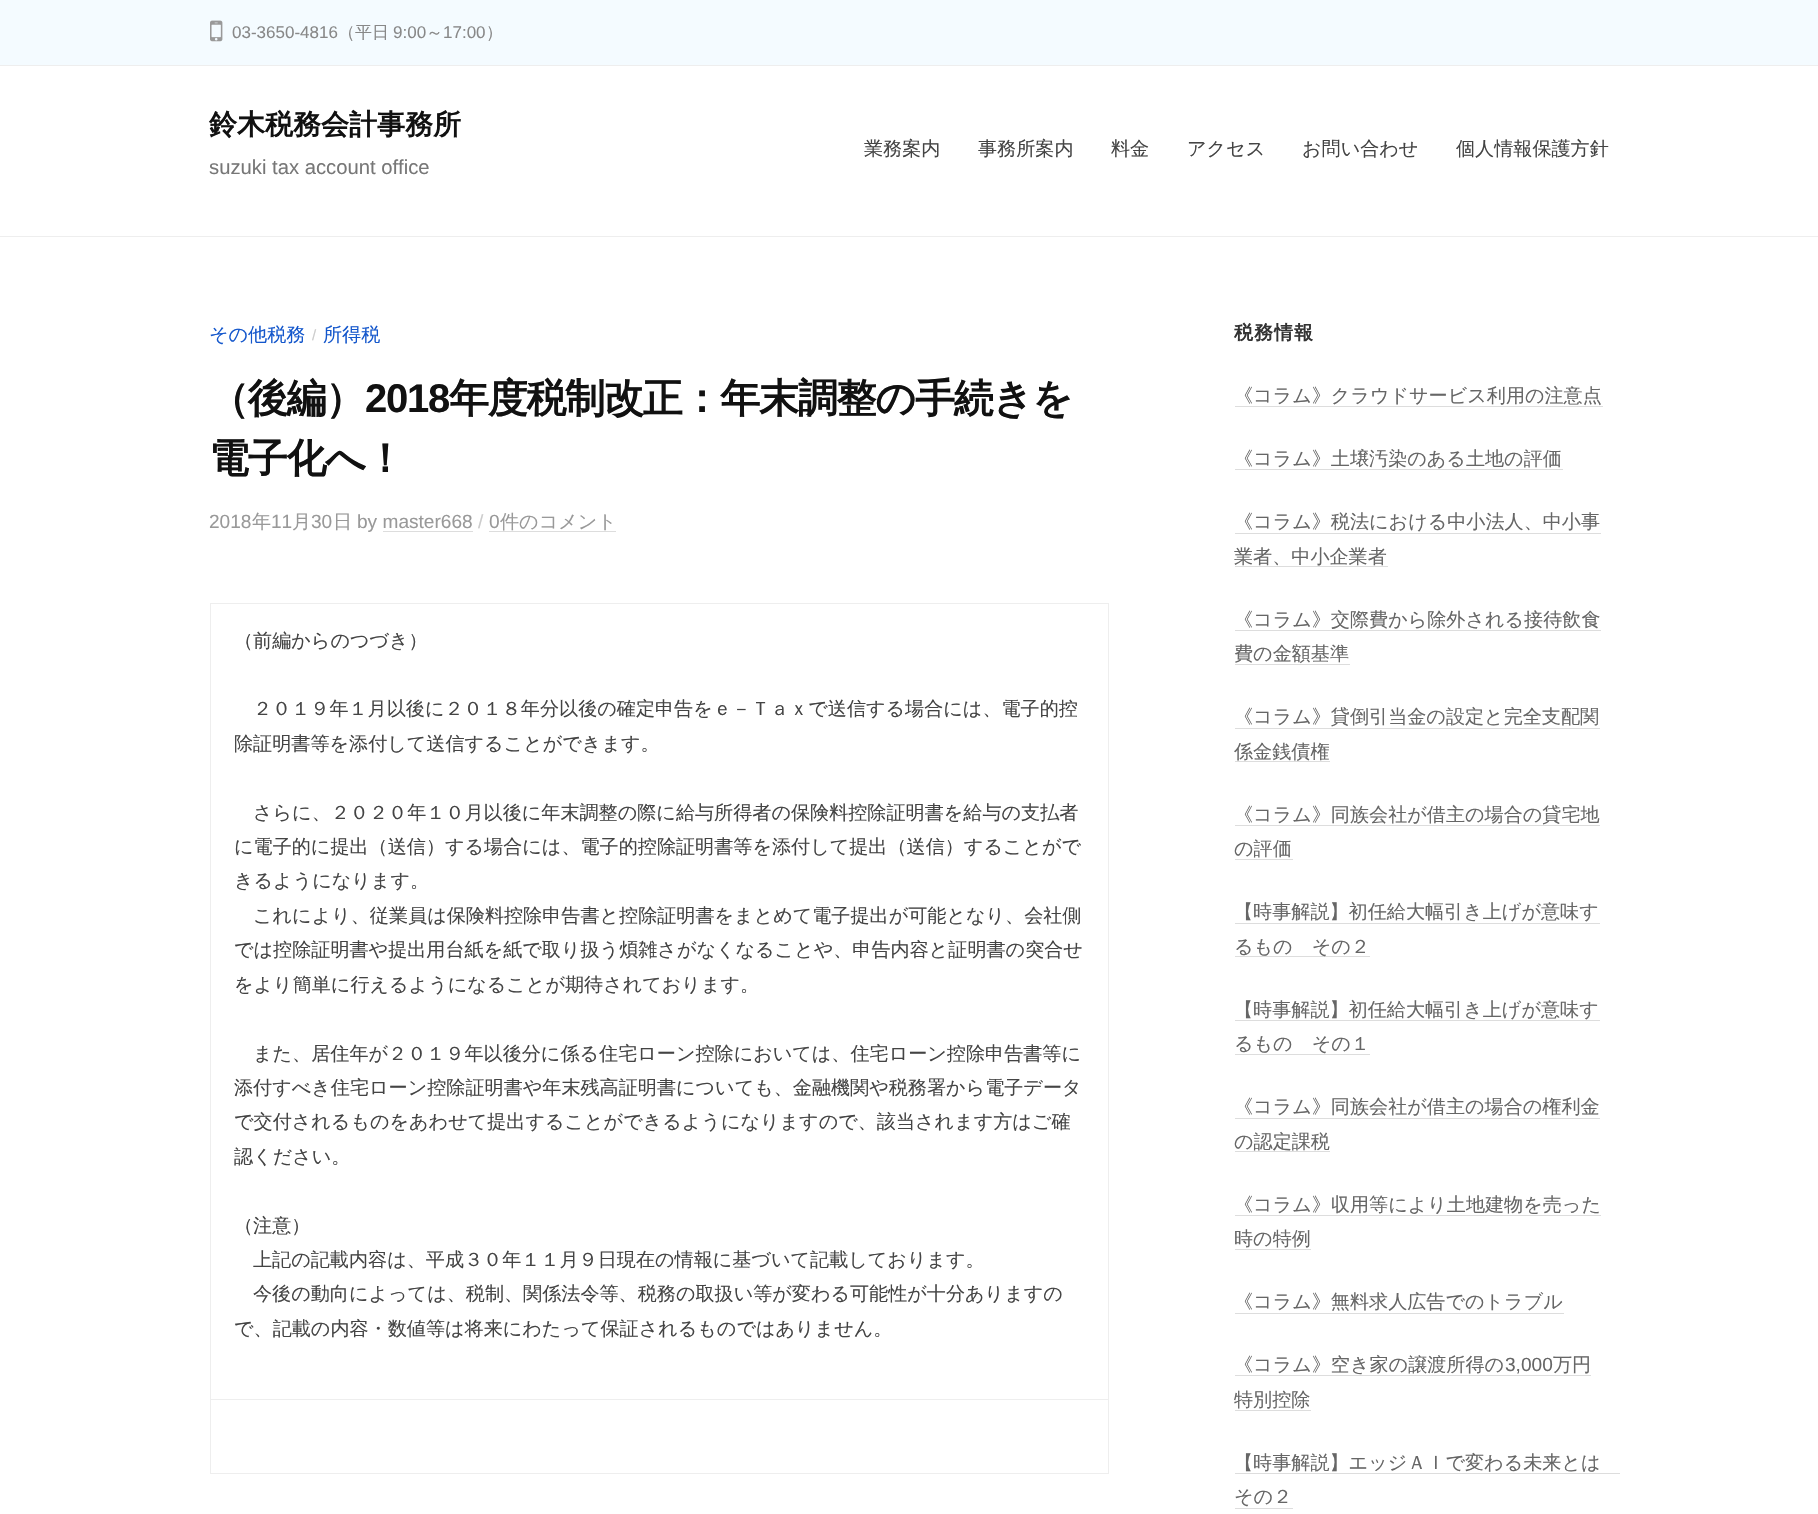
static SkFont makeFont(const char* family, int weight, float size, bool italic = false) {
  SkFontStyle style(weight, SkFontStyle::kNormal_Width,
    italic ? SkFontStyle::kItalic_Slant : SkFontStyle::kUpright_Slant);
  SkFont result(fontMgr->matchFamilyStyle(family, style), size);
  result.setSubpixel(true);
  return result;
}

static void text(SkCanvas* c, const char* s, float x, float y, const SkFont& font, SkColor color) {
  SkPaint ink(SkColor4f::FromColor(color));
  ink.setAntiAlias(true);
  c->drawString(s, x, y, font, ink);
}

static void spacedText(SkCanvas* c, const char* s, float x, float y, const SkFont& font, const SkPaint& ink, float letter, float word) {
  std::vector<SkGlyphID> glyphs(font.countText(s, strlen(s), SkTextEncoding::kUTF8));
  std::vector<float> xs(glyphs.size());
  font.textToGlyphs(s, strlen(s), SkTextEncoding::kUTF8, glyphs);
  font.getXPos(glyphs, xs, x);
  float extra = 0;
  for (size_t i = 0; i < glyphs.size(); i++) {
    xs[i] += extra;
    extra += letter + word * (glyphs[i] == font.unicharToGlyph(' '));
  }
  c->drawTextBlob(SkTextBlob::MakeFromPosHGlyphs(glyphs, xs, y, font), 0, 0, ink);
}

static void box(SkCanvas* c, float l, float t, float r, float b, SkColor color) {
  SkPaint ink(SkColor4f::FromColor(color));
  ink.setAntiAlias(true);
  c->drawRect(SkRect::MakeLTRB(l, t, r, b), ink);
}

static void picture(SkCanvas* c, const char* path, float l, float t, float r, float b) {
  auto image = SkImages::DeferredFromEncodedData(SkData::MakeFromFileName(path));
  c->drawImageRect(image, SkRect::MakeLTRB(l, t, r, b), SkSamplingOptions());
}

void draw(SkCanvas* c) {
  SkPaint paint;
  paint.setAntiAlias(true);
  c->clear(0xffffffff);
  box(c, 0, 236, 1818, 237, 0xffeeeeee);
  box(c, 0, 0, 1818, 65, 0xfff4fbff);
  box(c, 0, 65, 1818, 66, 0xffeeeeee);
  picture(c, "img_01.png", 210, 20, 223, 42);
  SkFont face1 = makeFont("Liberation Sans", 400, 17);
  text(c, "03-3650-4816", 232, 38, face1, 0xff888888);
  SkFont face2 = makeFont("WenQuanYi Zen Hei", 500, 17);
  text(c, "（平日", 338, 38, face2, 0xff888888);
  text(c, "9:00", 393, 38, face1, 0xff888888);
  text(c, "～", 426, 38, face2, 0xff888888);
  text(c, "17:00", 443, 38, face1, 0xff888888);
  text(c, "）", 486, 38, face2, 0xff888888);
  SkFont face3 = makeFont("WenQuanYi Zen Hei", 700, 28);
  text(c, "鈴木税務会計事務所", 209, 134, face3, 0xff111111);
  SkFont face4 = makeFont("Liberation Sans", 400, 20.25f);
  text(c, "suzuki tax account office", 209, 174, face4, 0xff777777);
  SkFont face5 = makeFont("WenQuanYi Zen Hei", 500, 19.1f);
  text(c, "業務案内", 864, 155, face5, 0xff444444);
  text(c, "事務所案内", 978, 155, face5, 0xff444444);
  text(c, "料金", 1111, 155, face5, 0xff444444);
  text(c, "アクセス", 1187, 155, face5, 0xff444444);
  text(c, "お問い合わせ", 1302, 155, face5, 0xff444444);
  text(c, "個人情報保護方針", 1456, 155, face5, 0xff444444);
  text(c, "その他税務", 209, 341, face5, 0xff1457cc);
  SkFont face6 = makeFont("Liberation Sans", 400, 15);
  text(c, "/", 312, 340, face6, 0xffcccccc);
  text(c, "所得税", 323, 341, face5, 0xff1457cc);
  SkFont face7 = makeFont("WenQuanYi Zen Hei", 700, 40);
  paint.setColor(0xff111111);
  spacedText(c, "（後編）", 209, 412, face7, paint, -1.25f, 0);
  SkFont face8 = makeFont("Liberation Sans", 700, 40);
  spacedText(c, "2018", 365, 412, face8, paint, -1.25f, 0);
  spacedText(c, "年度税制改正：年末調整の手続きを", 449, 412, face7, paint, -1.25f, 0);
  spacedText(c, "電子化へ！", 209, 472, face7, paint, -1.25f, 0);
  SkFont face9 = makeFont("Liberation Sans", 400, 19.1f);
  text(c, "2018", 209, 528, face9, 0xff999999);
  text(c, "年", 252, 528, face5, 0xff999999);
  text(c, "11", 271, 528, face9, 0xff999999);
  text(c, "月", 292, 528, face5, 0xff999999);
  text(c, "30", 311, 528, face9, 0xff999999);
  text(c, "日", 333, 528, face5, 0xff999999);
  text(c, "by master668", 357, 528, face9, 0xff999999);
  box(c, 383, 531, 473, 532, 0xffdddddd);
  text(c, "/", 478, 528, face9, 0xffcccccc);
  text(c, "0", 489, 528, face9, 0xff999999);
  box(c, 489, 531, 616, 532, 0xffdddddd);
  text(c, "件のコメント", 500, 528, face5, 0xff999999);
  box(c, 210, 603, 1109, 604, 0xffeeeeee);
  box(c, 210, 1399, 1109, 1400, 0xffeeeeee);
  box(c, 1108, 1399, 1109, 1474, 0xffeeeeee);
  box(c, 1108, 603, 1109, 1400, 0xffeeeeee);
  box(c, 210, 1473, 1109, 1474, 0xffeeeeee);
  box(c, 210, 1399, 211, 1474, 0xffeeeeee);
  box(c, 210, 603, 211, 1400, 0xffeeeeee);
  text(c, "（前編からのつづき）", 234, 647, face5, 0xff444444);
  text(c, "２０１９年１月以後に２０１８年分以後の確定申告をｅ－Ｔａｘで送信する場合には、電子的控", 253, 715, face5, 0xff444444);
  text(c, "除証明書等を添付して送信することができます。", 234, 750, face5, 0xff444444);
  text(c, "さらに、２０２０年１０月以後に年末調整の際に給与所得者の保険料控除証明書を給与の支払者", 253, 819, face5, 0xff444444);
  text(c, "に電子的に提出（送信）する場合には、電子的控除証明書等を添付して提出（送信）することがで", 234, 853, face5, 0xff444444);
  text(c, "きるようになります。", 234, 887, face5, 0xff444444);
  text(c, "これにより、従業員は保険料控除申告書と控除証明書をまとめて電子提出が可能となり、会社側", 253, 922, face5, 0xff444444);
  text(c, "では控除証明書や提出用台紙を紙で取り扱う煩雑さがなくなることや、申告内容と証明書の突合せ", 234, 956, face5, 0xff444444);
  text(c, "をより簡単に行えるようになることが期待されております。", 234, 991, face5, 0xff444444);
  text(c, "また、居住年が２０１９年以後分に係る住宅ローン控除においては、住宅ローン控除申告書等に", 253, 1060, face5, 0xff444444);
  text(c, "添付すべき住宅ローン控除証明書や年末残高証明書についても、金融機関や税務署から電子データ", 234, 1094, face5, 0xff444444);
  text(c, "で交付されるものをあわせて提出することができるようになりますので、該当されます方はご確", 234, 1128, face5, 0xff444444);
  text(c, "認ください。", 234, 1163, face5, 0xff444444);
  text(c, "（注意）", 234, 1232, face5, 0xff444444);
  text(c, "上記の記載内容は、平成３０年１１月９日現在の情報に基づいて記載しております。", 253, 1266, face5, 0xff444444);
  text(c, "今後の動向によっては、税制、関係法令等、税務の取扱い等が変わる可能性が十分ありますの", 253, 1300, face5, 0xff444444);
  text(c, "で、記載の内容・数値等は将来にわたって保証されるものではありません。", 234, 1335, face5, 0xff444444);
  SkFont face10 = makeFont("WenQuanYi Zen Hei", 700, 19);
  paint.setColor(0xff333333);
  spacedText(c, "税務情報", 1234, 339, face10, paint, 1, 0);
  text(c, "《コラム》クラウドサービス利用の注意点", 1234, 402, face5, 0xff666666);
  box(c, 1235, 406, 1603, 407, 0xffdddddd);
  text(c, "《コラム》土壌汚染のある土地の評価", 1234, 465, face5, 0xff666666);
  box(c, 1235, 469, 1563, 470, 0xffdddddd);
  text(c, "《コラム》税法における中小法人、中小事", 1234, 528, face5, 0xff666666);
  box(c, 1235, 533, 1601, 534, 0xffdddddd);
  text(c, "業者、中小企業者", 1234, 563, face5, 0xff666666);
  box(c, 1235, 566, 1388, 567, 0xffdddddd);
  text(c, "《コラム》交際費から除外される接待飲食", 1234, 626, face5, 0xff666666);
  box(c, 1235, 630, 1601, 631, 0xffdddddd);
  text(c, "費の金額基準", 1234, 660, face5, 0xff666666);
  box(c, 1235, 664, 1350, 665, 0xffdddddd);
  text(c, "《コラム》貸倒引当金の設定と完全支配関", 1234, 723, face5, 0xff666666);
  box(c, 1235, 728, 1600, 729, 0xffdddddd);
  text(c, "係金銭債権", 1234, 758, face5, 0xff666666);
  box(c, 1235, 761, 1330, 762, 0xffdddddd);
  text(c, "《コラム》同族会社が借主の場合の貸宅地", 1234, 821, face5, 0xff666666);
  box(c, 1235, 825, 1600, 826, 0xffdddddd);
  text(c, "の評価", 1234, 855, face5, 0xff666666);
  box(c, 1235, 859, 1293, 860, 0xffdddddd);
  text(c, "【時事解説】初任給大幅引き上げが意味す", 1234, 918, face5, 0xff666666);
  box(c, 1235, 923, 1600, 924, 0xffdddddd);
  box(c, 1235, 956, 1370, 957, 0xffdddddd);
  text(c, "るもの　その２", 1234, 953, face5, 0xff666666);
  text(c, "【時事解説】初任給大幅引き上げが意味す", 1234, 1016, face5, 0xff666666);
  box(c, 1235, 1020, 1600, 1021, 0xffdddddd);
  text(c, "るもの　その１", 1234, 1050, face5, 0xff666666);
  box(c, 1235, 1054, 1370, 1055, 0xffdddddd);
  text(c, "《コラム》同族会社が借主の場合の権利金", 1234, 1113, face5, 0xff666666);
  box(c, 1235, 1118, 1600, 1119, 0xffdddddd);
  text(c, "の認定課税", 1234, 1148, face5, 0xff666666);
  box(c, 1235, 1151, 1330, 1152, 0xffdddddd);
  text(c, "《コラム》収用等により土地建物を売った", 1234, 1211, face5, 0xff666666);
  box(c, 1235, 1215, 1601, 1216, 0xffdddddd);
  text(c, "時の特例", 1234, 1245, face5, 0xff666666);
  box(c, 1235, 1249, 1311, 1250, 0xffdddddd);
  text(c, "《コラム》無料求人広告でのトラブル", 1234, 1308, face5, 0xff666666);
  box(c, 1235, 1313, 1564, 1314, 0xffdddddd);
  text(c, "《コラム》空き家の譲渡所得の", 1234, 1371, face5, 0xff666666);
  text(c, "3,000", 1505, 1371, face9, 0xff666666);
  box(c, 1235, 1375, 1591, 1376, 0xffdddddd);
  text(c, "万円", 1553, 1371, face5, 0xff666666);
  text(c, "特別控除", 1234, 1406, face5, 0xff666666);
  box(c, 1235, 1410, 1311, 1411, 0xffdddddd);
  text(c, "【時事解説】エッジＡＩで変わる未来とは", 1234, 1469, face5, 0xff666666);
  box(c, 1235, 1473, 1620, 1474, 0xffdddddd);
  text(c, "その２", 1234, 1503, face5, 0xff666666);
  box(c, 1235, 1508, 1293, 1509, 0xffdddddd);
}
